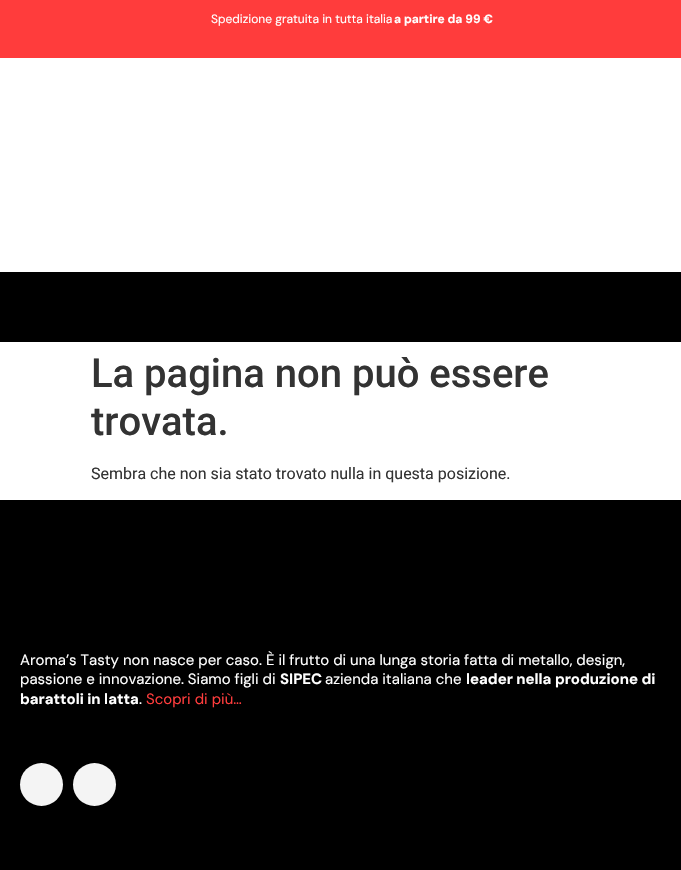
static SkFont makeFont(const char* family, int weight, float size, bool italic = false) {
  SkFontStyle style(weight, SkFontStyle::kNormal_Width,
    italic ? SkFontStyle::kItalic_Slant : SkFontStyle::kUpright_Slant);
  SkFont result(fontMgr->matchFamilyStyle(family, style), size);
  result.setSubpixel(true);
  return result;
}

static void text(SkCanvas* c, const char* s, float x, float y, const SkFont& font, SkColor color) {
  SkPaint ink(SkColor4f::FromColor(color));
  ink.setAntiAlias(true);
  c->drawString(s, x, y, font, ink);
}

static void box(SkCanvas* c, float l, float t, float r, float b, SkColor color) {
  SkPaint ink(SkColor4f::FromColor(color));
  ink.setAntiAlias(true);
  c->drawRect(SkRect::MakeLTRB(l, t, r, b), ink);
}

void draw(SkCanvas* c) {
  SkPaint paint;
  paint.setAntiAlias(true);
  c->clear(0xffffffff);
  box(c, 0, 0, 681, 58, 0xffff3c3c);
  SkFont face1 = makeFont("DM Sans", 400, 12);
  text(c, "Spedizione gratuita in tutta italia", 211, 23, face1, 0xffffffff);
  SkFont face2 = makeFont("DM Sans", 700, 12);
  text(c, "a partire da 99 €", 394, 23, face2, 0xffffffff);
  box(c, 0, 272, 681, 342, 0xff000000);
  SkFont face3 = makeFont("Roboto", 500, 40);
  text(c, "La pagina non può essere", 91, 387, face3, 0xff333333);
  text(c, "trovata.", 91, 435, face3, 0xff333333);
  SkFont face4 = makeFont("Roboto", 400, 16);
  text(c, "Sembra che non sia stato trovato nulla in questa posizione.", 91, 479, face4, 0xff333333);
  box(c, 0, 500, 681, 870, 0xff000000);
  SkFont face5 = makeFont("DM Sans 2", 400, 15);
  text(c, "Aroma’s Tasty non nasce per caso. È il frutto di una lunga storia fatta di metallo, design,", 20, 665, face5, 0xffffffff);
  text(c, "passione e innovazione. Siamo figli di", 20, 684, face5, 0xffffffff);
  SkFont face6 = makeFont("DM Sans 2", 700, 15);
  text(c, "SIPEC", 280, 684, face6, 0xffffffff);
  text(c, "azienda italiana che", 325, 684, face5, 0xffffffff);
  text(c, "leader nella produzione di", 466, 684, face6, 0xffffffff);
  text(c, "barattoli in latta", 20, 704, face6, 0xffffffff);
  text(c, ".", 139, 704, face5, 0xffffffff);
  text(c, "Scopri di più…", 146, 704, face5, 0xffff3c3c);
  paint.setColor(0xfff4f4f4);
  c->drawCircle(41.5f, 784.5f, 21.5f, paint);
  c->drawCircle(94.5f, 784.5f, 21.5f, paint);
}
